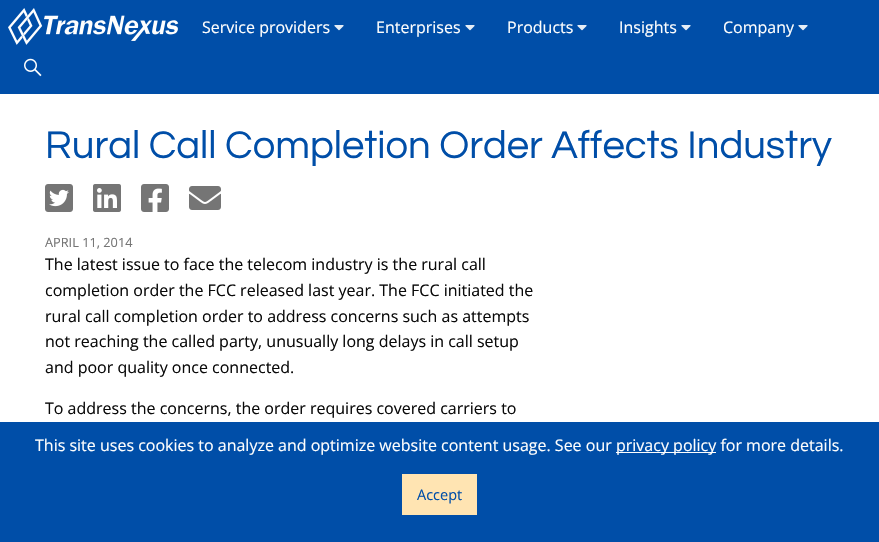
static SkFont makeFont(const char* family, int weight, float size, bool italic = false) {
  SkFontStyle style(weight, SkFontStyle::kNormal_Width,
    italic ? SkFontStyle::kItalic_Slant : SkFontStyle::kUpright_Slant);
  SkFont result(fontMgr->matchFamilyStyle(family, style), size);
  result.setSubpixel(true);
  return result;
}

static void text(SkCanvas* c, const char* s, float x, float y, const SkFont& font, SkColor color) {
  SkPaint ink(SkColor4f::FromColor(color));
  ink.setAntiAlias(true);
  c->drawString(s, x, y, font, ink);
}

static void box(SkCanvas* c, float l, float t, float r, float b, SkColor color) {
  SkPaint ink(SkColor4f::FromColor(color));
  ink.setAntiAlias(true);
  c->drawRect(SkRect::MakeLTRB(l, t, r, b), ink);
}

static void picture(SkCanvas* c, const char* path, float l, float t, float r, float b) {
  auto image = SkImages::DeferredFromEncodedData(SkData::MakeFromFileName(path));
  c->drawImageRect(image, SkRect::MakeLTRB(l, t, r, b), SkSamplingOptions());
}

void draw(SkCanvas* c) {
  SkPaint paint;
  paint.setAntiAlias(true);
  c->clear(0xffffffff);
  box(c, 0, 0, 879, 94, 0xff004ea8);
  picture(c, "img_01.png", 8, 8, 179, 45);
  SkFont face1 = makeFont("Open Sans", 400, 16);
  text(c, "Service providers", 202, 33, face1, 0xfffefefe);
  picture(c, "img_02.png", 334, 25, 344, 31);
  text(c, "Enterprises", 376, 33, face1, 0xfffefefe);
  picture(c, "img_02.png", 465, 25, 475, 31);
  text(c, "Products", 507, 33, face1, 0xfffefefe);
  picture(c, "img_02.png", 577, 25, 587, 31);
  text(c, "Insights", 619, 33, face1, 0xfffefefe);
  picture(c, "img_02.png", 681, 25, 691, 31);
  text(c, "Company", 723, 33, face1, 0xfffefefe);
  picture(c, "img_02.png", 798, 25, 808, 31);
  picture(c, "img_03.png", 24, 58, 42, 77);
  SkFont face2 = makeFont("Questrial", 400, 40);
  text(c, "Rural Call Completion Order Affects Industry", 45, 158, face2, 0xff004ea8);
  picture(c, "img_04.png", 45, 184, 73, 212);
  picture(c, "img_05.png", 93, 184, 121, 212);
  picture(c, "img_06.png", 141, 184, 169, 212);
  picture(c, "img_07.png", 189, 186, 221, 210);
  SkFont face3 = makeFont("Open Sans", 400, 12.75f);
  text(c, "APRIL 11, 2014", 45, 247, face3, 0xff757575);
  text(c, "The latest issue to face the telecom industry is the rural call", 45, 270, face1, 0xff0a0a0a);
  text(c, "completion order the FCC released last year. The FCC initiated the", 45, 296, face1, 0xff0a0a0a);
  text(c, "rural call completion order to address concerns such as attempts", 45, 322, face1, 0xff0a0a0a);
  text(c, "not reaching the called party, unusually long delays in call setup", 45, 347, face1, 0xff0a0a0a);
  text(c, "and poor quality once connected.", 45, 373, face1, 0xff0a0a0a);
  text(c, "To address the concerns, the order requires covered carriers to", 45, 414, face1, 0xff0a0a0a);
  box(c, 0, 422, 879, 542, 0xff004ea8);
  text(c, "This site uses cookies to analyze and optimize website content usage. See our", 35, 451, face1, 0xfffefefe);
  box(c, 616, 452, 716, 453, 0xfffefefe);
  text(c, "privacy policy for more details.", 616, 451, face1, 0xfffefefe);
  box(c, 402, 474, 477, 515, 0xffffe4b2);
  SkFont face4 = makeFont("Open Sans", 400, 14.5f);
  text(c, "Accept", 417, 500, face4, 0xff004ea8);
}
